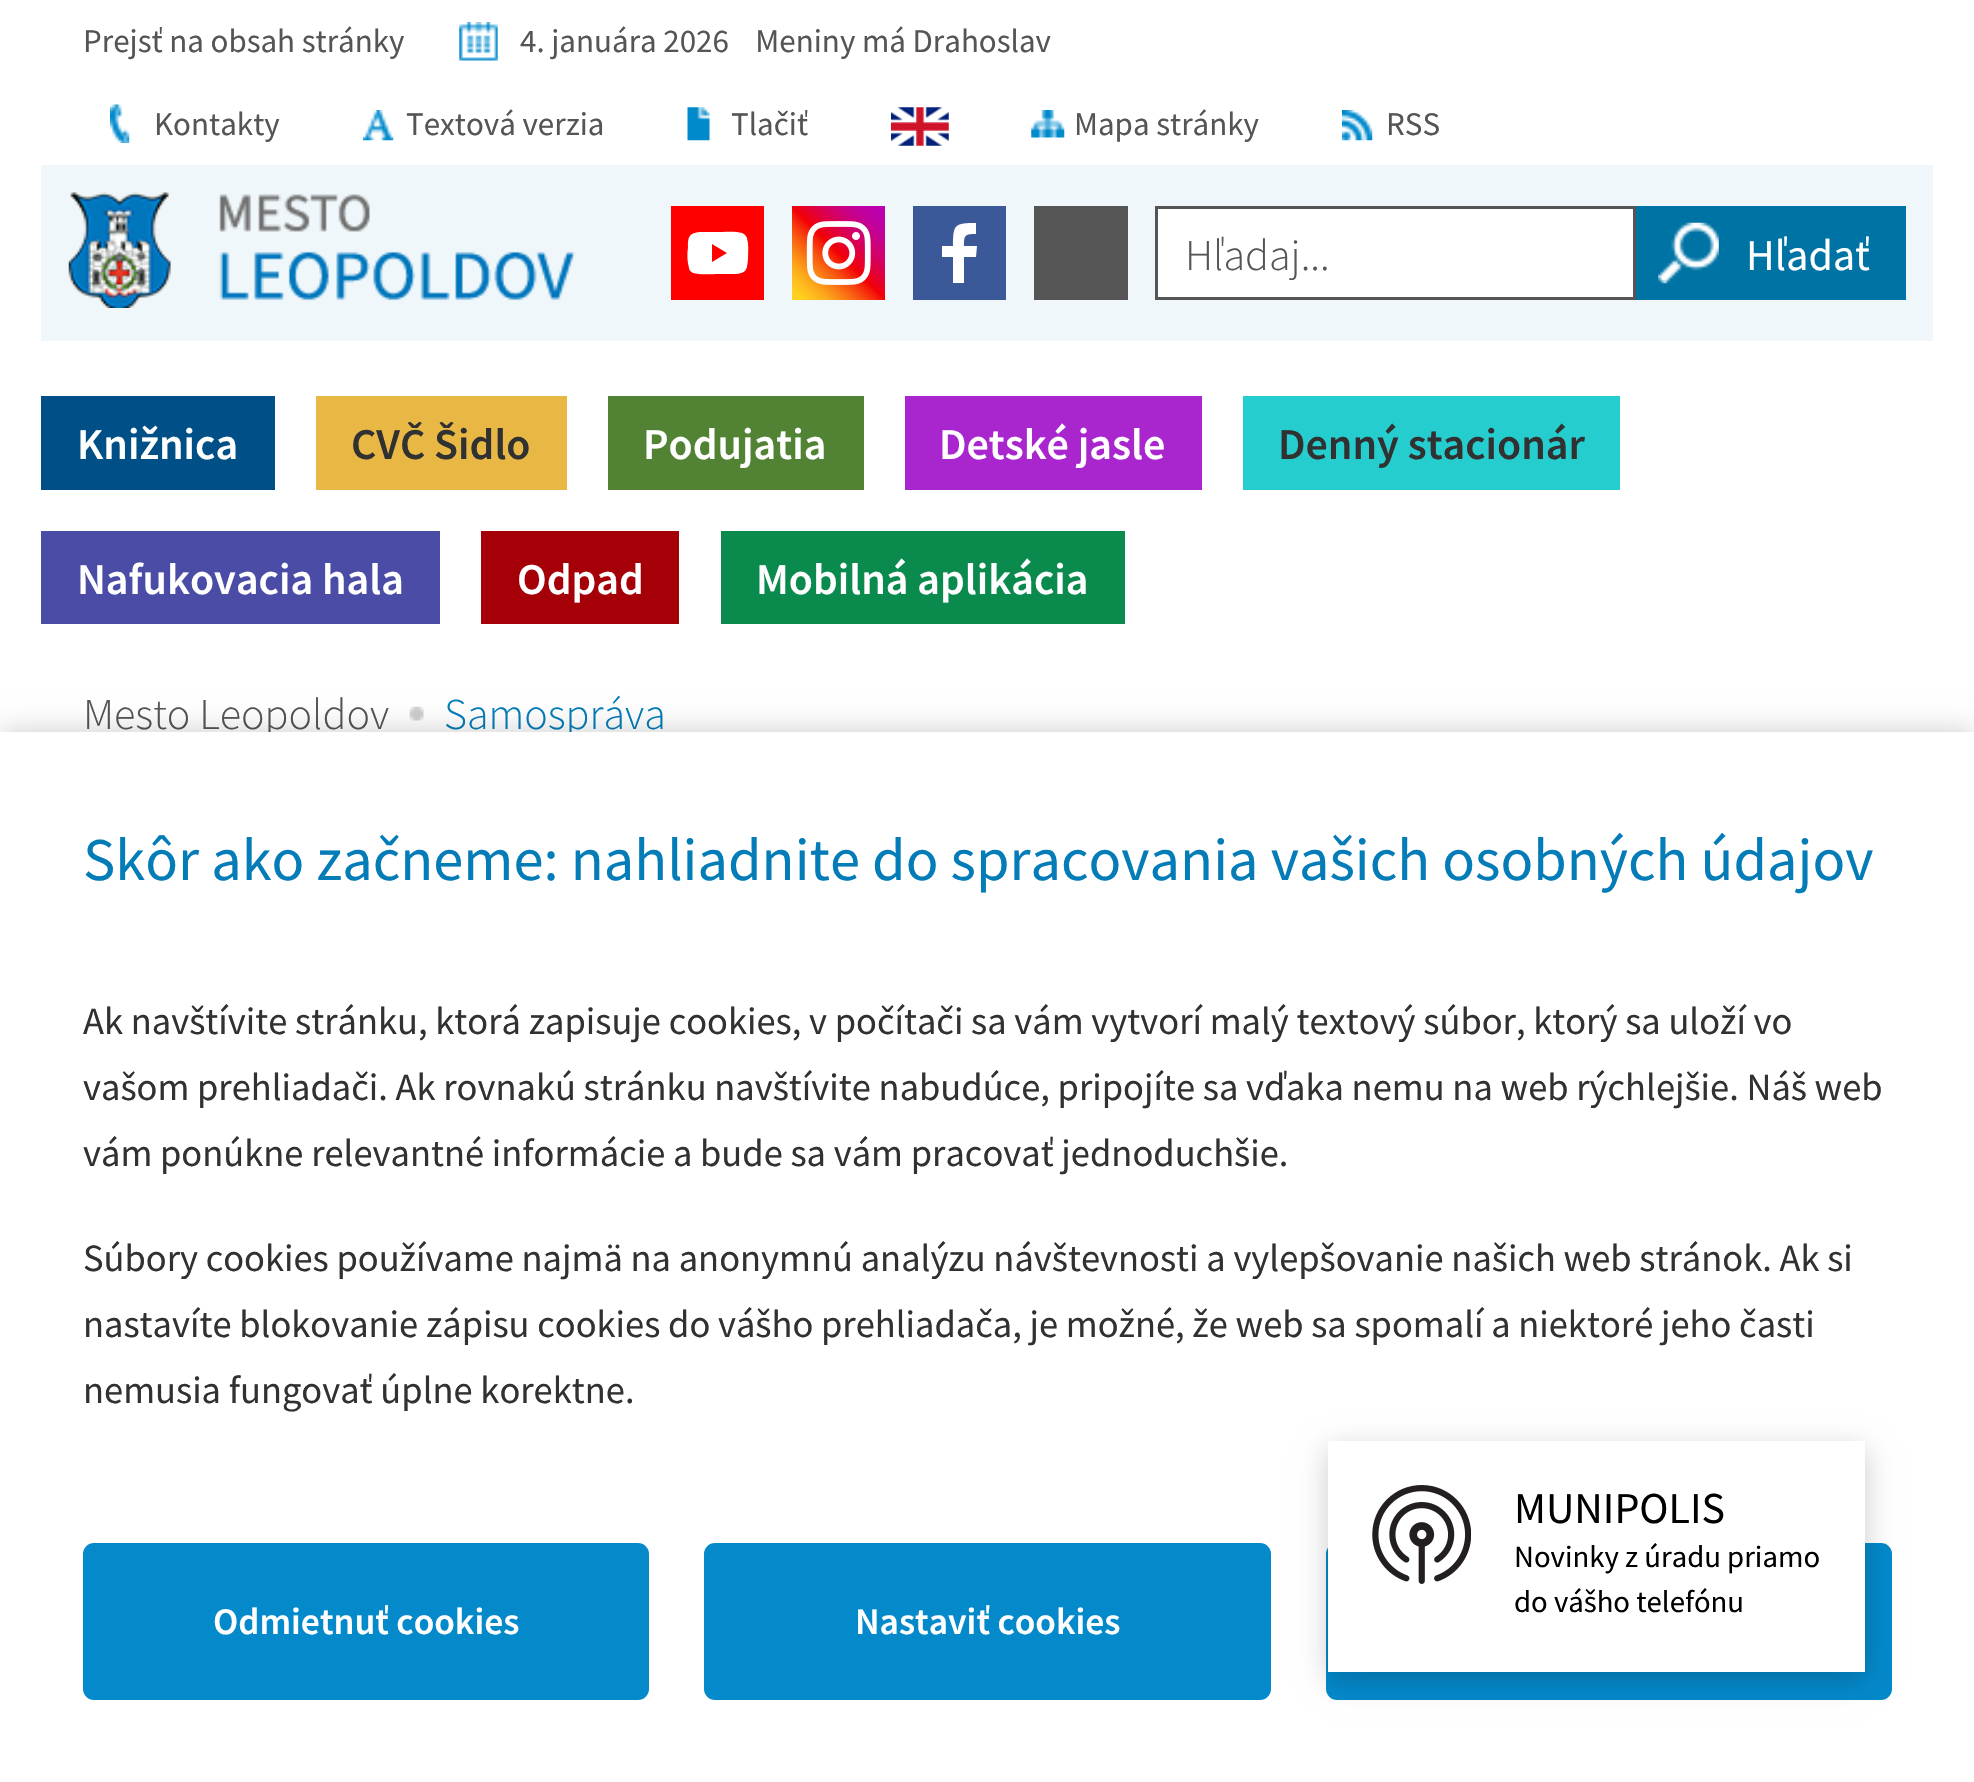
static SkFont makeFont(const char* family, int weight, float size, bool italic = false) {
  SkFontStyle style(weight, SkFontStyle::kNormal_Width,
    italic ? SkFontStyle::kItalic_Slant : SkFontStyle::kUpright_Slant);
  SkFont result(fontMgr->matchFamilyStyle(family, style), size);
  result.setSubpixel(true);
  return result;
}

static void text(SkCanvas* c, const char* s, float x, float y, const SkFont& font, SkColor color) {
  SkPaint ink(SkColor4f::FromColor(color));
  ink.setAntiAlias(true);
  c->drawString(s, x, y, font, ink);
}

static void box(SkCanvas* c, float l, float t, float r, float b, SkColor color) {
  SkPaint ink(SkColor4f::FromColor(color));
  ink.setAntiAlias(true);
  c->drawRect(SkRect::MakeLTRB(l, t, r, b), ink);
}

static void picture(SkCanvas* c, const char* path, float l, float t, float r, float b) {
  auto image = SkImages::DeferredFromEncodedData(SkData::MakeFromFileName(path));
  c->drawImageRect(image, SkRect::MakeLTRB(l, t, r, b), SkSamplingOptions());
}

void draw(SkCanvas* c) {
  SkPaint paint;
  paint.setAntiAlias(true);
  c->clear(0xffffffff);
  SkFont face1 = makeFont("Source Sans Pro", 400, 33);
  text(c, "Prejsť na obsah stránky", 83, 52, face1, 0xff555555);
  picture(c, "img_01.png", 459, 22, 498, 61);
  text(c, "4. januára 2026    Meniny má Drahoslav", 520, 52, face1, 0xff555555);
  picture(c, "img_02.png", 110, 104, 130, 143);
  text(c, "Kontakty", 154, 135, face1, 0xff555555);
  picture(c, "img_03.png", 363, 110, 394, 141);
  text(c, "Textová verzia", 406, 135, face1, 0xff555555);
  picture(c, "img_04.png", 687, 107, 710, 141);
  text(c, "Tlačiť", 731, 135, face1, 0xff555555);
  picture(c, "img_05.png", 891, 107, 949, 146);
  picture(c, "img_06.png", 1031, 110, 1065, 138);
  text(c, "Mapa stránky", 1074, 135, face1, 0xff555555);
  picture(c, "img_07.png", 1342, 110, 1373, 141);
  text(c, "RSS", 1386, 135, face1, 0xff555555);
  box(c, 41, 165, 1933, 341, 0xfff0f7fa);
  picture(c, "img_08.png", 68, 192, 575, 308);
  box(c, 671, 206, 764, 300, 0xffff0000);
  paint.setColor(0xffffffff);
  c->drawPath(SkPathBuilder().moveTo(747, 238).cubicTo(746, 236, 745, 234, 742, 233).cubicTo(737, 231, 723, 232, 717, 232).lineTo(700, 232).cubicTo(689, 233, 688, 237, 688, 247).cubicTo(687, 254, 687, 261, 689, 268).cubicTo(689, 270, 691, 272, 693, 273).cubicTo(699, 275, 712, 274, 719, 274).lineTo(736, 274).cubicTo(747, 273, 747, 269, 748, 259).cubicTo(748, 252, 749, 245, 747, 238).close().moveTo(712, 262).lineTo(712, 244).lineTo(727, 253).close().detach(), paint);
  picture(c, "img_09.png", 792, 206, 885, 300);
  box(c, 913, 206, 1006, 300, 0xff3b5998);
  c->drawPath(SkPathBuilder().moveTo(964, 283).lineTo(964, 257).lineTo(976, 257).lineTo(977, 246).lineTo(964, 246).cubicTo(964, 235, 965, 234, 976, 234).lineTo(976, 223).cubicTo(955, 223, 953, 224, 953, 246).lineTo(942, 246).lineTo(942, 257).lineTo(953, 257).lineTo(953, 283).close().detach(), paint);
  box(c, 1034, 206, 1128, 300, 0xff555555);
  c->drawRect(SkRect::MakeLTRB(1156.5f, 207.5f, 1634.5f, 298.5f), paint);
  paint.setStyle(SkPaint::kStroke_Style);
  paint.setStrokeWidth(3);
  paint.setColor(0xff555555);
  c->drawRect(SkRect::MakeLTRB(1156.5f, 207.5f, 1634.5f, 298.5f), paint);
  SkFont face2 = makeFont("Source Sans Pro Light", 300, 44);
  text(c, "Hľadaj...", 1185, 270, face2, 0xff555555);
  box(c, 1636, 206, 1906, 300, 0xff0073a5);
  picture(c, "img_10.png", 1658, 222, 1719, 284);
  SkFont face3 = makeFont("Source Sans Pro", 400, 44);
  text(c, "Hľadať", 1746, 270, face3, 0xffffffff);
  box(c, 41, 396, 275, 490, 0xff004f86);
  SkFont face4 = makeFont("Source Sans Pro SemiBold", 600, 44);
  text(c, "Knižnica", 77, 459, face4, 0xffffffff);
  box(c, 316, 396, 567, 490, 0xffe9b844);
  text(c, "CVČ Šidlo", 351, 459, face4, 0xff313131);
  box(c, 608, 396, 864, 490, 0xff528334);
  text(c, "Podujatia", 643, 459, face4, 0xffffffff);
  box(c, 905, 396, 1202, 490, 0xffa926cf);
  text(c, "Detské jasle", 939, 459, face4, 0xffffffff);
  box(c, 1243, 396, 1620, 490, 0xff26cdcf);
  text(c, "Denný stacionár", 1278, 459, face4, 0xff313131);
  box(c, 41, 531, 440, 624, 0xff4b4ca6);
  text(c, "Nafukovacia hala", 77, 594, face4, 0xffffffff);
  box(c, 481, 531, 679, 624, 0xffa50008);
  text(c, "Odpad", 517, 594, face4, 0xffffffff);
  box(c, 721, 531, 1125, 624, 0xff0a8a4d);
  text(c, "Mobilná aplikácia", 756, 594, face4, 0xffffffff);
  text(c, "Mesto Leopoldov", 83, 729, face2, 0xff555555);
  picture(c, "img_11.png", 409, 706, 424, 721);
  text(c, "Samospráva", 444, 729, face2, 0xff047cb8);
  paint.setStyle(SkPaint::kFill_Style);
  paint.setColor(0x33000000);
  paint.setMaskFilter(SkMaskFilter::MakeBlur(kNormal_SkBlurStyle, 14));
  c->drawRect(SkRect::MakeLTRB(0, 732, 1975, 1782), paint);
  paint.setMaskFilter(nullptr);
  box(c, 0, 732, 1974, 1782, 0xffffffff);
  SkFont face5 = makeFont("Source Sans Pro", 400, 60.5f);
  text(c, "Skôr ako začneme: nahliadnite do spracovania vašich osobných údajov", 83, 880, face5, 0xff047cb8);
  SkFont face6 = makeFont("Source Sans Pro", 400, 38.5f);
  text(c, "Ak navštívite stránku, ktorá zapisuje cookies, v počítači sa vám vytvorí malý textový súbor, ktorý sa uloží vo", 83, 1034, face6, 0xff313131);
  text(c, "vašom prehliadači. Ak rovnakú stránku navštívite nabudúce, pripojíte sa vďaka nemu na web rýchlejšie. Náš web", 83, 1100, face6, 0xff313131);
  text(c, "vám ponúkne relevantné informácie a bude sa vám pracovať jednoduchšie.", 83, 1166, face6, 0xff313131);
  text(c, "Súbory cookies používame najmä na anonymnú analýzu návštevnosti a vylepšovanie našich web stránok. Ak si", 83, 1271, face6, 0xff313131);
  text(c, "nastavíte blokovanie zápisu cookies do vášho prehliadača, je možné, že web sa spomalí a niektoré jeho časti", 83, 1337, face6, 0xff313131);
  text(c, "nemusia fungovať úplne korektne.", 83, 1403, face6, 0xff313131);
  paint.setColor(0xff0489cb);
  c->drawRoundRect(SkRect::MakeLTRB(88.5f, 1548.5f, 643.5f, 1694.5f), 5.5f, 5.5f, paint);
  paint.setStyle(SkPaint::kStroke_Style);
  paint.setStrokeWidth(11);
  c->drawRoundRect(SkRect::MakeLTRB(88.5f, 1548.5f, 643.5f, 1694.5f), 5.5f, 5.5f, paint);
  SkFont face7 = makeFont("Source Sans Pro SemiBold", 600, 37.5f);
  text(c, "Odmietnuť cookies", 213, 1634, face7, 0xffffffff);
  paint.setStyle(SkPaint::kFill_Style);
  c->drawRoundRect(SkRect::MakeLTRB(709.5f, 1548.5f, 1265.5f, 1694.5f), 5.5f, 5.5f, paint);
  paint.setStyle(SkPaint::kStroke_Style);
  c->drawRoundRect(SkRect::MakeLTRB(709.5f, 1548.5f, 1265.5f, 1694.5f), 5.5f, 5.5f, paint);
  text(c, "Nastaviť cookies", 855, 1634, face7, 0xffffffff);
  paint.setStyle(SkPaint::kFill_Style);
  c->drawRoundRect(SkRect::MakeLTRB(1331.5f, 1548.5f, 1886.5f, 1694.5f), 5.5f, 5.5f, paint);
  paint.setStyle(SkPaint::kStroke_Style);
  c->drawRoundRect(SkRect::MakeLTRB(1331.5f, 1548.5f, 1886.5f, 1694.5f), 5.5f, 5.5f, paint);
  paint.setStyle(SkPaint::kFill_Style);
  paint.setColor(0x33000000);
  paint.setMaskFilter(SkMaskFilter::MakeBlur(kNormal_SkBlurStyle, 14));
  c->drawRect(SkRect::MakeLTRB(1328, 1449, 1865, 1680), paint);
  paint.setMaskFilter(nullptr);
  box(c, 1328, 1441, 1865, 1672, 0xffffffff);
  picture(c, "img_12.png", 1372, 1485, 1471, 1584);
  text(c, "MUNIPOLIS", 1514, 1523, face3, 0xff000000);
  SkFont face8 = makeFont("Source Sans Pro", 400, 30.75f);
  text(c, "Novinky z úradu priamo", 1514, 1567, face8, 0xff000000);
  text(c, "do vášho telefónu", 1514, 1612, face8, 0xff000000);
}
